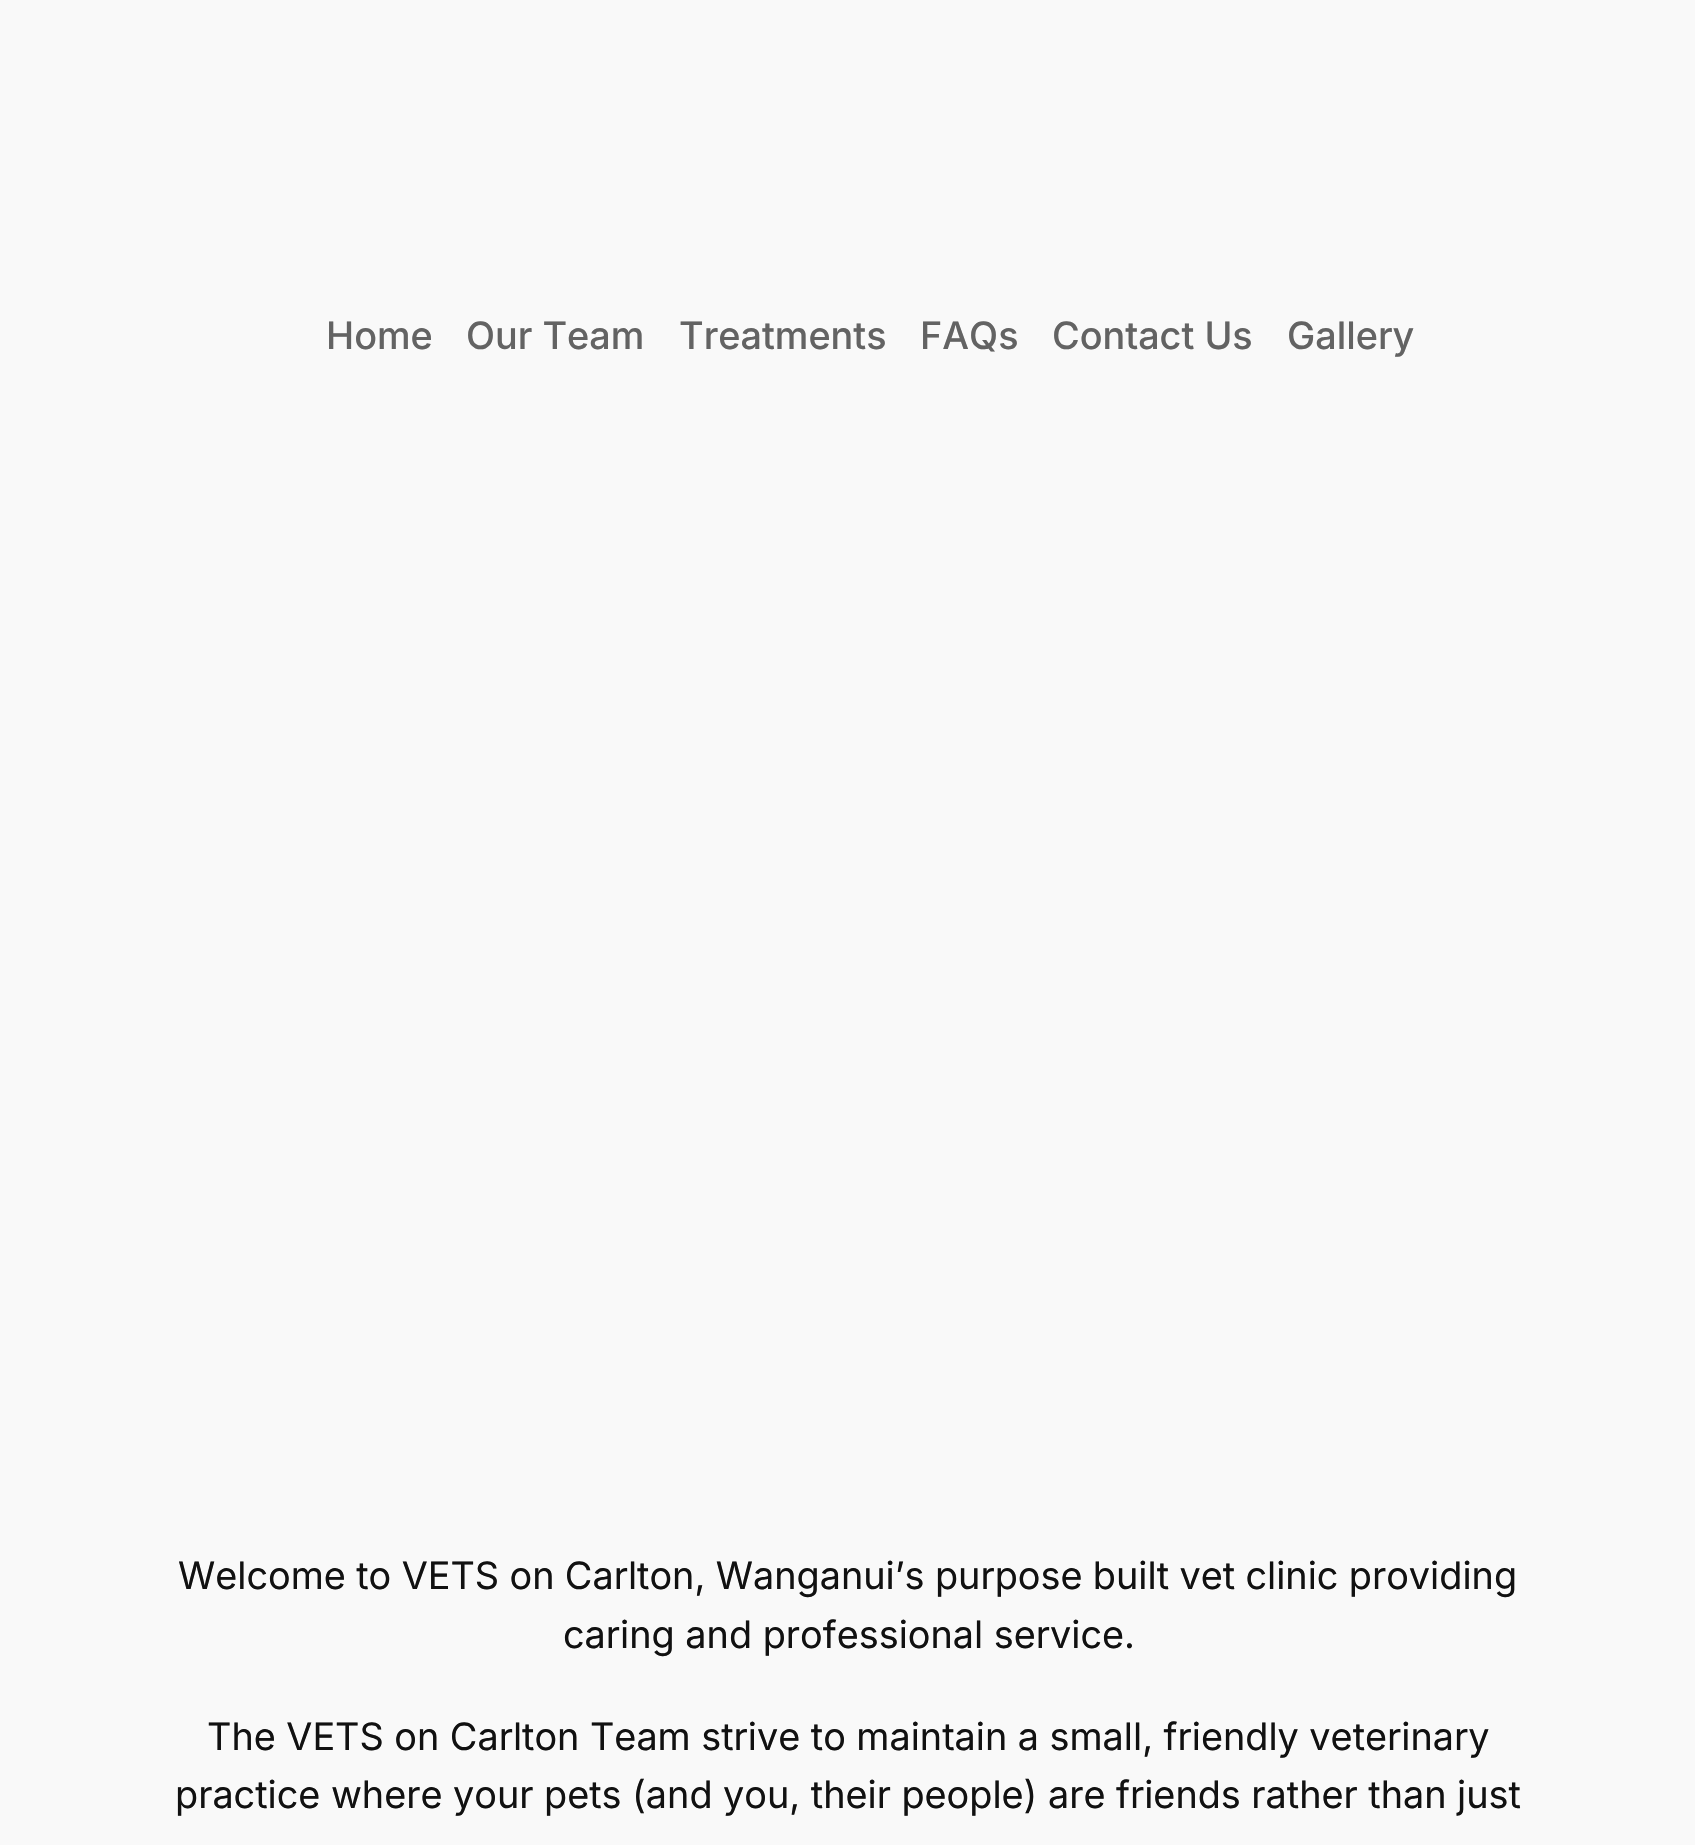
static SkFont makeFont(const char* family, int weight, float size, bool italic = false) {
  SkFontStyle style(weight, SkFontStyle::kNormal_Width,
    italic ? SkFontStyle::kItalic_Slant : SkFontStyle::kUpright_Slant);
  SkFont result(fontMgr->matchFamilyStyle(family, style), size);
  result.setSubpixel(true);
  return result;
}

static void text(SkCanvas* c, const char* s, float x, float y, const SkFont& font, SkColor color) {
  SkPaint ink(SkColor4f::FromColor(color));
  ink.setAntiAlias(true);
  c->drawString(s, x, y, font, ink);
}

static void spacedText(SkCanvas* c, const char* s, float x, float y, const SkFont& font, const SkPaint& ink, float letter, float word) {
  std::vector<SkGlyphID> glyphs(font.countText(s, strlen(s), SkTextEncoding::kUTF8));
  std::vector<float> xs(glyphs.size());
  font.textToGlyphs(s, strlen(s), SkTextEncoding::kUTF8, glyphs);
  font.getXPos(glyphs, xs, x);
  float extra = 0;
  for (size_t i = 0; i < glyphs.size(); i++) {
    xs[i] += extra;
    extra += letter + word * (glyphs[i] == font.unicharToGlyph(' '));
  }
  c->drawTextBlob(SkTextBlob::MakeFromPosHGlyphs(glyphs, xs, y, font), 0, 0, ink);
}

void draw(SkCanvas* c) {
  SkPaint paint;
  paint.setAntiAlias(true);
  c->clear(0xfff9f9f9);
  SkFont face1 = makeFont("Inter", 500, 37.8f);
  text(c, "Home", 326, 349, face1, 0xff636363);
  text(c, "Our Team", 466, 349, face1, 0xff636363);
  text(c, "Treatments", 679, 349, face1, 0xff636363);
  text(c, "FAQs", 920, 349, face1, 0xff636363);
  text(c, "Contact Us", 1052, 349, face1, 0xff636363);
  text(c, "Gallery", 1287, 349, face1, 0xff636363);
  SkFont face2 = makeFont("Inter", 400, 37.8f);
  paint.setColor(0xff111111);
  spacedText(c, "Welcome to VETS on Carlton, Wanganui’s purpose built vet clinic providing", 178, 1589, face2, paint, 0, -0.25f);
  text(c, "caring and professional service.", 563, 1648, face2, 0xff111111);
  spacedText(c, "The VETS on Carlton Team strive to maintain a small, friendly veterinary", 207, 1750, face2, paint, 0, -0.1f);
  spacedText(c, "practice where your pets (and you, their people) are friends rather than just", 175, 1808, face2, paint, 0, -0.1f);
}
